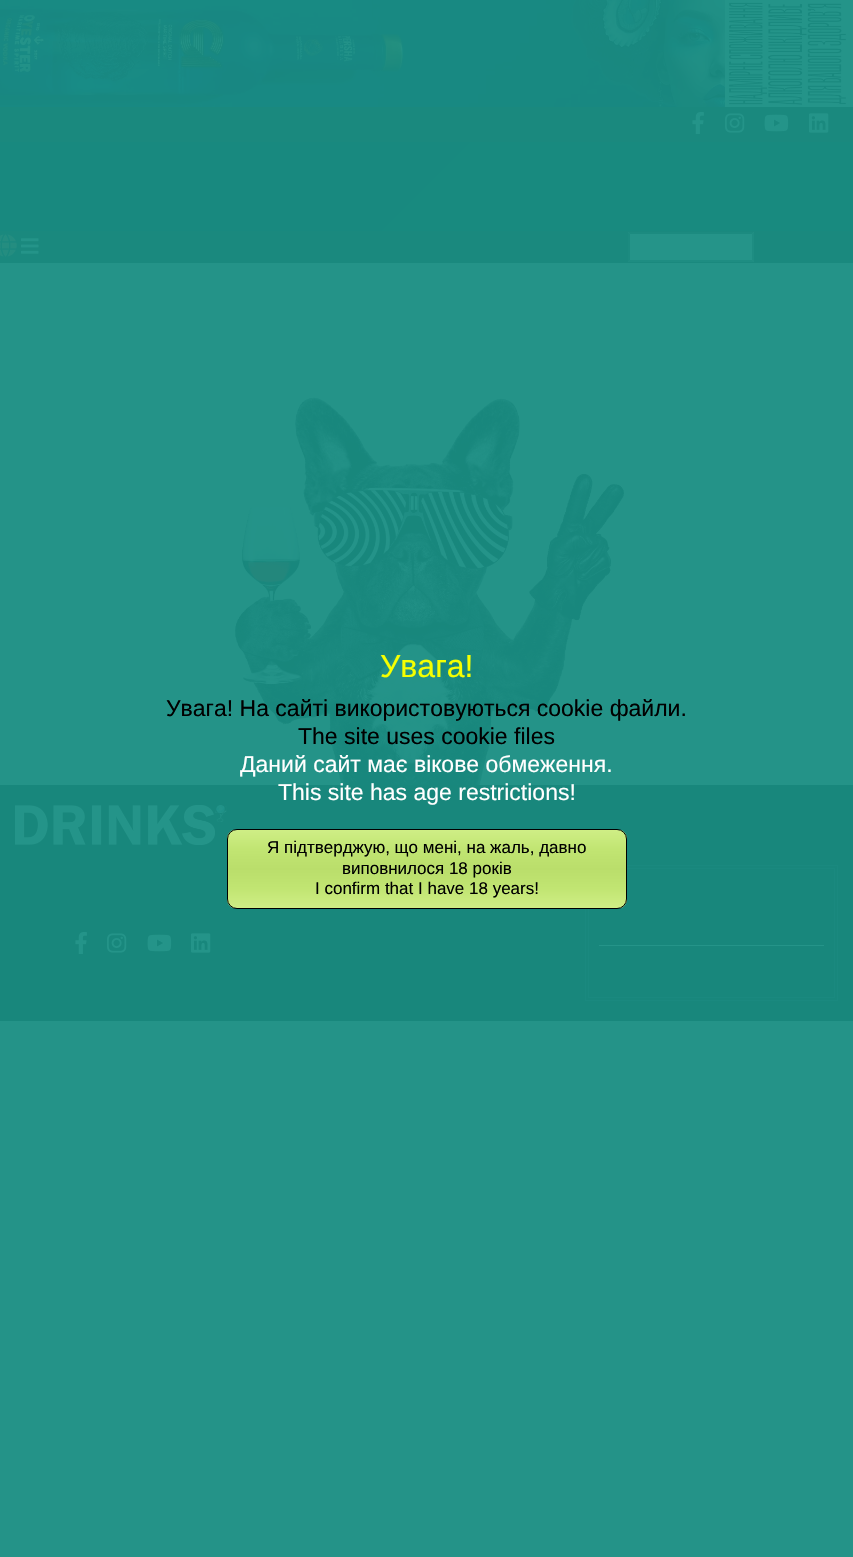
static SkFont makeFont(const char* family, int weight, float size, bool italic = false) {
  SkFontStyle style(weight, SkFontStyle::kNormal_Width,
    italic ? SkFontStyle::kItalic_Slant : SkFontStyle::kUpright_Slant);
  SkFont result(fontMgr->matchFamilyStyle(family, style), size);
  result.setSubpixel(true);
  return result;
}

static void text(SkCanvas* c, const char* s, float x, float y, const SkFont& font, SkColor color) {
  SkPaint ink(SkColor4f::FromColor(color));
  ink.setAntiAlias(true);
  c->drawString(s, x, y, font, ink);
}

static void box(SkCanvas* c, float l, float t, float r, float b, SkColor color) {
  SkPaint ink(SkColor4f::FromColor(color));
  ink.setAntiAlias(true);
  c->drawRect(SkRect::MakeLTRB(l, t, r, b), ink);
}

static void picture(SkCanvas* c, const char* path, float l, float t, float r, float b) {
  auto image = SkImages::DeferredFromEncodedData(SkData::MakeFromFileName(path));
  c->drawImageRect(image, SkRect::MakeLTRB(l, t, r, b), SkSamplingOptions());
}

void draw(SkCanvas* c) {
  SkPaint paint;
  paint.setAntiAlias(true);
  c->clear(0xff249388);
  picture(c, "img_01.png", 0, 0, 853, 107);
  box(c, 0, 107, 853, 142, 0xff1a897e);
  picture(c, "img_02.png", 692, 112, 704, 134);
  picture(c, "img_03.png", 725, 113, 745, 133);
  picture(c, "img_04.png", 764, 114, 789, 132);
  picture(c, "img_05.png", 809, 113, 829, 133);
  {
    const SkColor colors[] = {0xff188d82, 0xff188b80, 0xff18897f};
    const float stops[] = {0, 0.5f, 1};
    const SkPoint ends[] = {{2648, 1262}, {764, -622}};
    paint.setShader(SkGradientShader::MakeLinear(ends, colors, stops, 3, SkTileMode::kClamp));
    paint.setAlpha(255);
  }
  c->drawRect(SkRect::MakeLTRB(0, 142, 853, 231), paint);
  box(c, 0, 231, 853, 263, 0xff1a897e);
  picture(c, "img_06.png", 0, 234, 17, 257);
  picture(c, "img_07.png", 21, 238, 39, 254);
  box(c, 628, 232, 754, 262, 0xff259489);
  paint.setShader(nullptr);
  paint.setColor(0xff1c8b80);
  c->drawPath(SkPathBuilder().moveTo(628, 232).lineTo(754, 232).lineTo(752, 234).lineTo(630, 234).close().detach(), paint);
  paint.setColor(0xff1e8d82);
  c->drawPath(SkPathBuilder().moveTo(754, 232).lineTo(754, 262).lineTo(752, 260).lineTo(752, 234).close().detach(), paint);
  c->drawPath(SkPathBuilder().moveTo(754, 262).lineTo(628, 262).lineTo(630, 260).lineTo(752, 260).close().detach(), paint);
  paint.setColor(0xff1c8b80);
  c->drawPath(SkPathBuilder().moveTo(628, 262).lineTo(628, 232).lineTo(630, 234).lineTo(630, 260).close().detach(), paint);
  picture(c, "img_08.png", 235, 397, 625, 785);
  box(c, 0, 785, 853, 1021, 0xff18877c);
  picture(c, "img_09.png", 15, 805, 215, 845);
  picture(c, "img_10.png", 215, 805, 227, 822);
  picture(c, "img_11.png", 75, 932, 87, 954);
  picture(c, "img_12.png", 107, 933, 127, 953);
  picture(c, "img_13.png", 147, 934, 172, 952);
  picture(c, "img_14.png", 191, 933, 211, 953);
  paint.setStyle(SkPaint::kStroke_Style);
  paint.setStrokeWidth(1);
  paint.setColor(0xff1a897f);
  c->drawRect(SkRect::MakeLTRB(585.5f, 865.5f, 837.5f, 1000.5f), paint);
  c->drawRect(SkRect::MakeLTRB(588.5f, 868.5f, 834.5f, 997.5f), paint);
  box(c, 599, 945, 824, 946, 0xff259489);
  SkFont face1 = makeFont("Liberation Sans", 400, 32);
  text(c, "Увага!", 380, 677, face1, 0xfff6ff00);
  SkFont face2 = makeFont("Liberation Sans", 400, 23);
  text(c, "Увага! На сайті використовуються cookie файли.", 166, 716, face2, 0xff000000);
  text(c, "The site uses cookie files", 298, 744, face2, 0xff000000);
  text(c, "Даний сайт має вікове обмеження.", 240, 772, face2, 0xffffffff);
  text(c, "This site has age restrictions!", 278, 800, face2, 0xffffffff);
  c->save();
  c->clipPath(SkPathBuilder().moveTo(237, 829).lineTo(617, 829).cubicTo(622.5f, 829, 627, 833.5f, 627, 839).lineTo(627, 899).cubicTo(627, 904.5f, 622.5f, 909, 617, 909).lineTo(237, 909).cubicTo(231.5f, 909, 227, 904.5f, 227, 899).lineTo(227, 839).cubicTo(227, 833.5f, 231.5f, 829, 237, 829).close().detach(), true);
  paint.setStyle(SkPaint::kFill_Style);
  {
    const SkColor colors[] = {0xffcfee85, 0xffc1e572, 0xffbade6b, 0xffc1e572, 0xffcfee85};
    const float stops[] = {0, 0.25f, 0.5f, 0.75f, 1};
    const SkPoint ends[] = {{427, 830}, {427, 908}};
    paint.setShader(SkGradientShader::MakeLinear(ends, colors, stops, 5, SkTileMode::kClamp));
    paint.setAlpha(255);
  }
  c->drawRect(SkRect::MakeLTRB(227, 830, 627, 908), paint);
  c->restore();
  paint.setStyle(SkPaint::kStroke_Style);
  paint.setShader(nullptr);
  paint.setColor(0xff000000);
  c->drawRoundRect(SkRect::MakeLTRB(227.5f, 829.5f, 626.5f, 908.5f), 9.5f, 9.5f, paint);
  SkFont face3 = makeFont("Liberation Sans", 400, 17);
  text(c, "Я підтверджую, що мені, на жаль, давно", 267, 853, face3, 0xff000000);
  text(c, "виповнилося 18 років", 342, 874, face3, 0xff000000);
  text(c, "I confirm that I have 18 years!", 315, 894, face3, 0xff000000);
}
